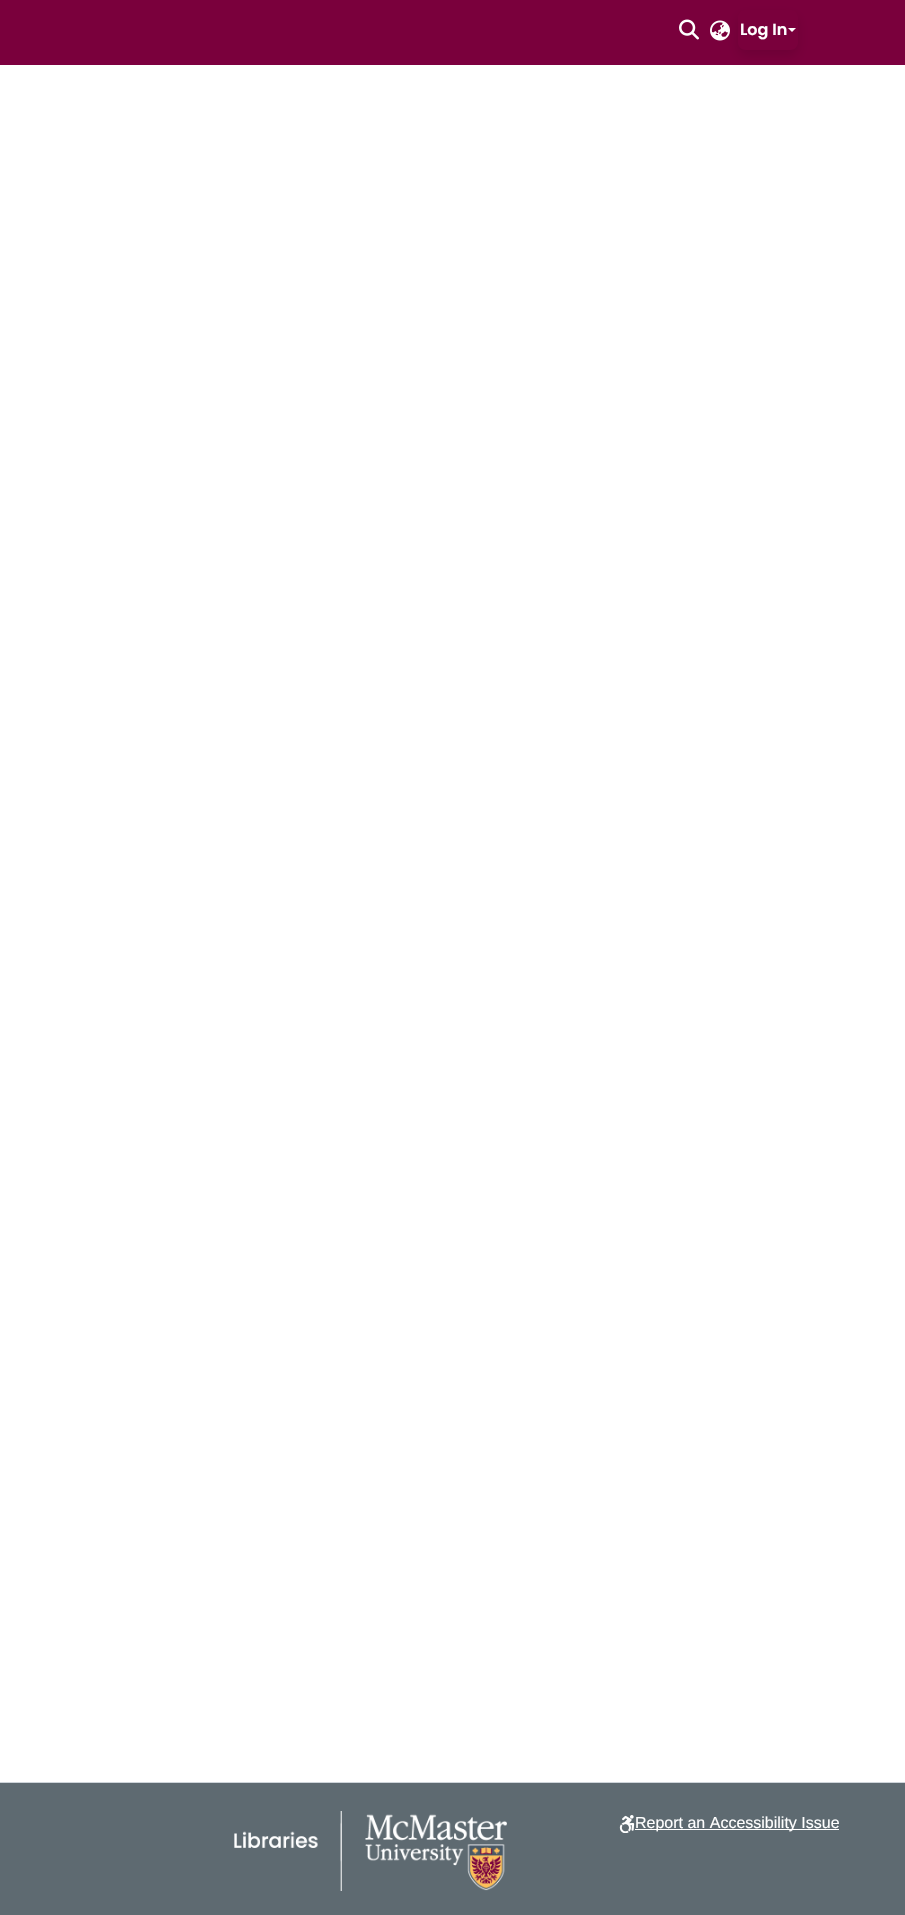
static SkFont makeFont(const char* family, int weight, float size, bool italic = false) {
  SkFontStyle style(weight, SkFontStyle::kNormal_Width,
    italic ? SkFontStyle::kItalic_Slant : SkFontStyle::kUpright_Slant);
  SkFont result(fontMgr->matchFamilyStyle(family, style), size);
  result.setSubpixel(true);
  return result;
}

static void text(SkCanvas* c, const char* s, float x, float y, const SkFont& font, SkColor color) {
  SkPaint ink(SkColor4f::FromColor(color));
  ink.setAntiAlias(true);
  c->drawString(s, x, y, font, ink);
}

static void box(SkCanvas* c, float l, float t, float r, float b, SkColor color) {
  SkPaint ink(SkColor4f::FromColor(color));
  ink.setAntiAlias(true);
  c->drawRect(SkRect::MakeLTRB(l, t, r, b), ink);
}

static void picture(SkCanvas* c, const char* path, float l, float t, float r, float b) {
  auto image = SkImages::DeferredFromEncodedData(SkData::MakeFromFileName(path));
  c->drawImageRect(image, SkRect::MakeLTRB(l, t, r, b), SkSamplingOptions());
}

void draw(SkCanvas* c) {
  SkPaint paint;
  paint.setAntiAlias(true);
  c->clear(0xffffffff);
  box(c, 0, 60, 905, 65, 0xff7d0040);
  box(c, 0, 0, 905, 60, 0xff7a003c);
  picture(c, "img_01.png", 679, 19, 699, 40);
  picture(c, "img_02.png", 710, 20, 730, 41);
  c->save();
  c->clipPath(SkPathBuilder(SkPathFillType::kEvenOdd).moveTo(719, 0).lineTo(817, 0).lineTo(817, 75).lineTo(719, 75).close().moveTo(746, 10).lineTo(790, 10).cubicTo(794.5f, 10, 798, 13.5f, 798, 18).lineTo(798, 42).cubicTo(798, 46.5f, 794.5f, 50, 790, 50).lineTo(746, 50).cubicTo(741.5f, 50, 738, 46.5f, 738, 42).lineTo(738, 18).cubicTo(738, 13.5f, 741.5f, 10, 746, 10).close().detach(), true);
  paint.setColor(0x1a000000);
  paint.setMaskFilter(SkMaskFilter::MakeBlur(kNormal_SkBlurStyle, 6));
  c->drawRoundRect(SkRect::MakeLTRB(738, 16, 798, 56), 8, 8, paint);
  paint.setMaskFilter(nullptr);
  c->restore();
  SkFont face1 = makeFont("Poppins", 600, 16);
  text(c, "Log In", 740, 35, face1, 0xffffffff);
  paint.setColor(0xffffffff);
  c->drawPath(SkPathBuilder().moveTo(788, 28).lineTo(796, 28).lineTo(792, 32).close().detach(), paint);
  box(c, 0, 1783, 905, 1915, 0xff5e6a71);
  box(c, 0, 1782, 905, 1783, 0xffced4da);
  picture(c, "img_03.png", 234, 1811, 507, 1891);
  picture(c, "img_04.png", 619, 1815, 635, 1833);
  box(c, 635, 1829, 839, 1830, 0xffffffff);
  SkFont face2 = makeFont("Liberation Sans", 400, 16);
  text(c, "Report an Accessibility Issue", 635, 1828, face2, 0xffffffff);
}
